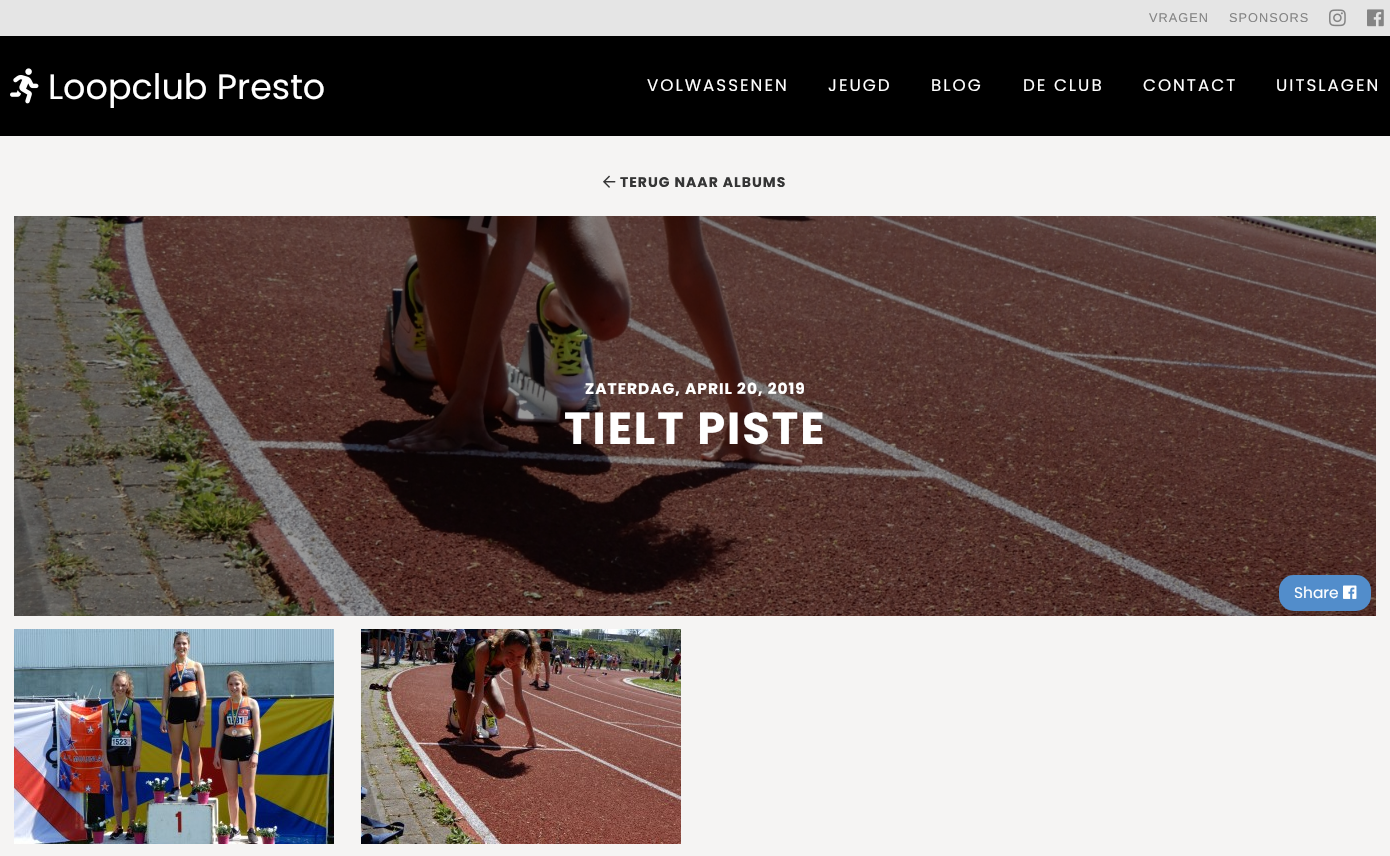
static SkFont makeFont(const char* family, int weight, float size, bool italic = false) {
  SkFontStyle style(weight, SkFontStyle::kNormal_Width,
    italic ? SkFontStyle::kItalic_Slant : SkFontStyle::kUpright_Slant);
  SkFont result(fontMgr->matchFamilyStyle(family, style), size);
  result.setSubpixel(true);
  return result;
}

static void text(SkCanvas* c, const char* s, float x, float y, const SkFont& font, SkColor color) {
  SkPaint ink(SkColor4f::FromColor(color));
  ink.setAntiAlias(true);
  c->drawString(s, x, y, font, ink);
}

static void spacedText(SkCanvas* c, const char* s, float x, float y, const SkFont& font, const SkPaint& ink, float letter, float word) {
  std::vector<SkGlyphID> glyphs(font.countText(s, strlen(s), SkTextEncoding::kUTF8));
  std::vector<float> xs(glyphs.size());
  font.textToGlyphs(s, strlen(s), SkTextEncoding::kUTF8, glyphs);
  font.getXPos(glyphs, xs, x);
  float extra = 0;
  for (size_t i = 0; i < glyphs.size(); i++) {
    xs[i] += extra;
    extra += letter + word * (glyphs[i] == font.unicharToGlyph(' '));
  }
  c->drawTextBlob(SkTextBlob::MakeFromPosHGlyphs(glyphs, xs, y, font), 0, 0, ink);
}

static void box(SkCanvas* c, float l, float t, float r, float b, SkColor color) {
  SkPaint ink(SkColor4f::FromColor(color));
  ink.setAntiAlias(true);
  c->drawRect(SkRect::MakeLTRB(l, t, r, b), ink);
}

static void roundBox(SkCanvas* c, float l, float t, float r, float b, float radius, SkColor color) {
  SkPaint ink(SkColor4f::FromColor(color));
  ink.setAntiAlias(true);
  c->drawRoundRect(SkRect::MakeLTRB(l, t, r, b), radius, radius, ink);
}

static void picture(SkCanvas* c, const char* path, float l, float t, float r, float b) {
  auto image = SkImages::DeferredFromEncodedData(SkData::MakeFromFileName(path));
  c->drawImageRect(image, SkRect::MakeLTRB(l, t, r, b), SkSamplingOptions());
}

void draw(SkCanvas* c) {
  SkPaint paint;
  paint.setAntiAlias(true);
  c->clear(0xfff5f4f3);
  box(c, 0, 36, 1390, 136, 0xff000000);
  box(c, 0, 0, 1390, 36, 0xffe5e5e5);
  SkFont face1 = makeFont("Liberation Sans", 400, 12.75f);
  paint.setColor(0xff848484);
  spacedText(c, "VRAGEN", 1149, 22, face1, paint, 1, 0);
  spacedText(c, "SPONSORS", 1229, 22, face1, paint, 1, 0);
  picture(c, "img_01.png", 1329, 9, 1346, 27);
  picture(c, "img_02.png", 1367, 9, 1384, 27);
  picture(c, "img_03.png", 10, 68, 39, 104);
  SkFont face2 = makeFont("Poppins", 400, 35);
  text(c, "Loopclub Presto", 48, 99, face2, 0xffffffff);
  SkFont face3 = makeFont("Poppins", 400, 16.75f);
  paint.setColor(0xffffffff);
  spacedText(c, "VOLWASSENEN", 647, 91, face3, paint, 2, 0);
  spacedText(c, "JEUGD", 828, 91, face3, paint, 2, 0);
  spacedText(c, "BLOG", 931, 91, face3, paint, 2, 0);
  spacedText(c, "DE CLUB", 1023, 91, face3, paint, 2, 0);
  spacedText(c, "CONTACT", 1143, 91, face3, paint, 2, 0);
  spacedText(c, "UITSLAGEN", 1276, 91, face3, paint, 2, 0);
  picture(c, "img_04.png", 603, 175, 616, 188);
  SkFont face4 = makeFont("Poppins", 700, 14);
  paint.setColor(0xff353535);
  spacedText(c, "TERUG NAAR ALBUMS", 620, 187, face4, paint, 1, 0);
  picture(c, "img_05.png", 14, 216, 1376, 616);
  SkFont face5 = makeFont("Poppins", 700, 15.4f);
  paint.setColor(0xffffffff);
  spacedText(c, "ZATERDAG, APRIL 20, 2019", 585, 394, face5, paint, 1, 0);
  SkFont face6 = makeFont("Poppins", 700, 44.75f);
  spacedText(c, "TIELT PISTE", 564, 444, face6, paint, 2, 0);
  roundBox(c, 1279, 575, 1371, 611, 15, 0xff528dcb);
  SkFont face7 = makeFont("Poppins", 400, 15.4f);
  text(c, "Share", 1294, 598, face7, 0xffffffff);
  picture(c, "img_06.png", 1343, 585, 1357, 599);
  picture(c, "img_07.png", 14, 629, 334, 844);
  picture(c, "img_08.png", 361, 629, 681, 844);
}
